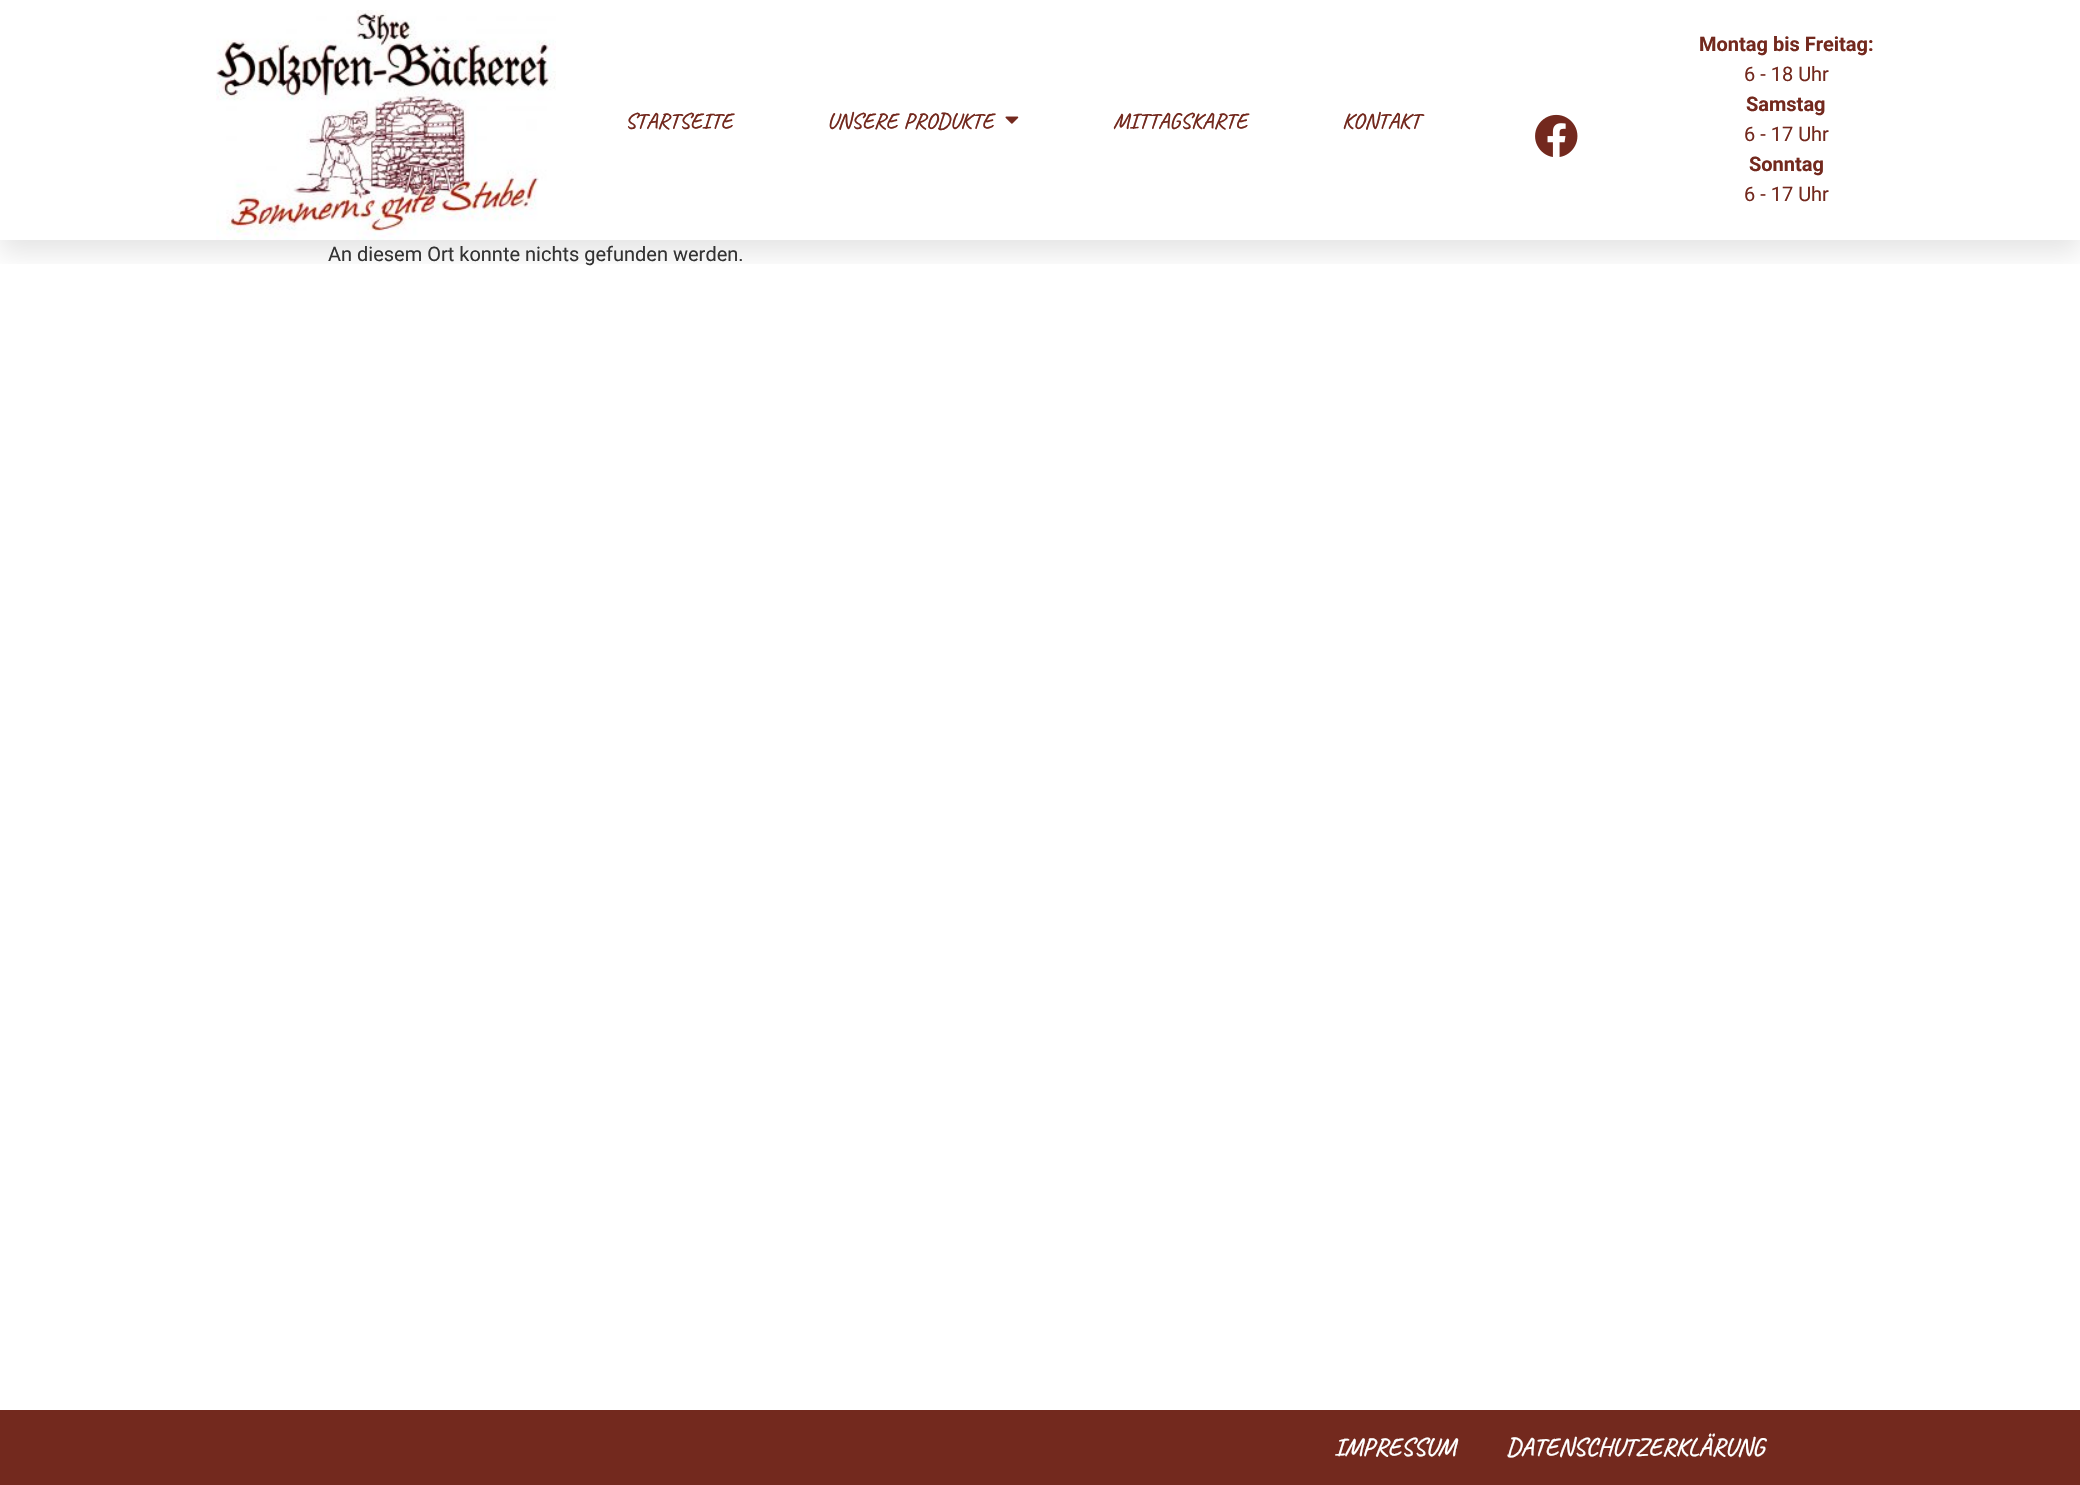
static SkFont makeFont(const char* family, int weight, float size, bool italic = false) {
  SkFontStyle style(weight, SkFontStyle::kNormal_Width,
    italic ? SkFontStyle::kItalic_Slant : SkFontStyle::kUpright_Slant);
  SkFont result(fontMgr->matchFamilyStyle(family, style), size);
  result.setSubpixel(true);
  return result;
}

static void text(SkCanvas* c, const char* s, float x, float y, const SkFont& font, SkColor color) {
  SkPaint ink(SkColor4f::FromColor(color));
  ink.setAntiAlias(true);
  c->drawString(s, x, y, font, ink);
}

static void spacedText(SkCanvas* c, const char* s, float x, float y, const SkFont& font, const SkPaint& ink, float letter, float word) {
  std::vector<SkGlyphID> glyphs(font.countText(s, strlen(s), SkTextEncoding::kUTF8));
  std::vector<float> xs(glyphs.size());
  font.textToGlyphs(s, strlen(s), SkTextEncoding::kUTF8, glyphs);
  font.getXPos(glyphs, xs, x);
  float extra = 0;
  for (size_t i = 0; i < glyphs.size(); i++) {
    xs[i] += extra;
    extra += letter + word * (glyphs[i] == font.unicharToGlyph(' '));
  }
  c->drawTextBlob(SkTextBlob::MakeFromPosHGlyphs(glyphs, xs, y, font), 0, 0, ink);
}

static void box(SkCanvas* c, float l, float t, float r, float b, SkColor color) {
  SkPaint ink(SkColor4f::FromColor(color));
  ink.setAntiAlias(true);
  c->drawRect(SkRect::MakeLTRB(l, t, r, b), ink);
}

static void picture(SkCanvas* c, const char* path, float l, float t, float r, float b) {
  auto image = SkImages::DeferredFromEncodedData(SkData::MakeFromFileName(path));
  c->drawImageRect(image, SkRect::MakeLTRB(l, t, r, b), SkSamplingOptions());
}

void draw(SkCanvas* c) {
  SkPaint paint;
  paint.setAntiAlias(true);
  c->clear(0xffffffff);
  c->save();
  c->clipRect(SkRect::MakeLTRB(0, 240, 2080, 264));
  paint.setColor(0x1a000000);
  paint.setMaskFilter(SkMaskFilter::MakeBlur(kNormal_SkBlurStyle, 12.5f));
  c->drawRect(SkRect::MakeLTRB(0, 13, 2080, 253), paint);
  paint.setMaskFilter(nullptr);
  c->restore();
  picture(c, "img_01.png", 216, 10, 556, 240);
  SkFont face1 = makeFont("Caveat", 600, 22);
  text(c, "STARTSEITE", 625, 128, face1, 0xff73291e);
  paint.setColor(0xff73291e);
  spacedText(c, "UNSERE PRODUKTE", 827, 128, face1, paint, 0, 1);
  picture(c, "img_02.png", 1005, 116, 1019, 124);
  text(c, "MITTAGSKARTE", 1113, 128, face1, 0xff73291e);
  text(c, "KONTAKT", 1342, 128, face1, 0xff73291e);
  picture(c, "img_03.png", 1535, 114, 1578, 157);
  SkFont face2 = makeFont("Roboto", 700, 20);
  text(c, "Montag bis Freitag:", 1699, 51, face2, 0xff73291e);
  SkFont face3 = makeFont("Roboto", 400, 20);
  text(c, "6 - 18 Uhr", 1744, 81, face3, 0xff73291e);
  text(c, "Samstag", 1746, 111, face2, 0xff73291e);
  text(c, "6 - 17 Uhr", 1744, 141, face3, 0xff73291e);
  text(c, "Sonntag", 1749, 171, face2, 0xff73291e);
  text(c, "6 - 17 Uhr", 1744, 201, face3, 0xff73291e);
  text(c, "An diesem Ort konnte nichts gefunden werden.", 328, 261, face3, 0xff333333);
  box(c, 0, 1410, 2080, 1485, 0xff73291e);
  SkFont face4 = makeFont("Caveat", 600, 25);
  text(c, "IMPRESSUM", 1334, 1455, face4, 0xffffffff);
  text(c, "DATENSCHUTZERKLÄRUNG", 1506, 1455, face4, 0xffffffff);
}
